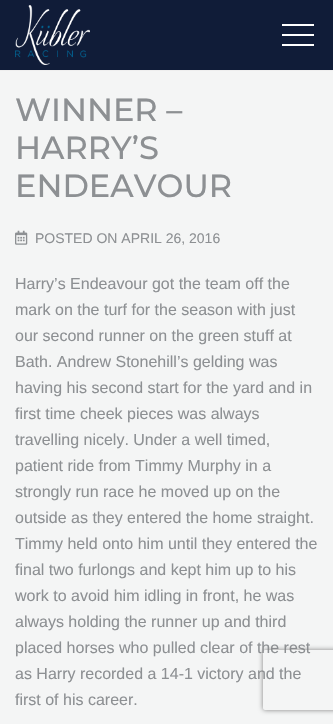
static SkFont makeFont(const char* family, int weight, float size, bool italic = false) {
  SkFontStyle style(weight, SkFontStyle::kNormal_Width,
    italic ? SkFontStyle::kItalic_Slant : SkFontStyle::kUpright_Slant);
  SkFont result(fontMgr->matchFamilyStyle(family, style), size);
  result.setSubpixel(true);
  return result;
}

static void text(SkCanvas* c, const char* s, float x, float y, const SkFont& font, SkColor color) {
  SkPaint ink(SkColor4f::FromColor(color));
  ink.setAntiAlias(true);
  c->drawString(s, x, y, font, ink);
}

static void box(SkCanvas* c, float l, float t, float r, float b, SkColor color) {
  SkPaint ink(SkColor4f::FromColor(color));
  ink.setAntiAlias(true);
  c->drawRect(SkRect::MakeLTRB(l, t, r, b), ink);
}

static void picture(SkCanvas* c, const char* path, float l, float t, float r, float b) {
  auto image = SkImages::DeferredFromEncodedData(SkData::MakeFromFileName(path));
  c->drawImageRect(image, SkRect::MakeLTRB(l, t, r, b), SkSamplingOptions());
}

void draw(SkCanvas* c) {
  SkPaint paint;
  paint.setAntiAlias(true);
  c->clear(0xfff4f5f5);
  box(c, 0, 0, 333, 70, 0xff101c38);
  picture(c, "img_01.png", 15, 5, 90, 65);
  box(c, 282, 24, 314, 26, 0xffffffff);
  box(c, 282, 34, 314, 36, 0xffffffff);
  box(c, 282, 44, 314, 46, 0xffffffff);
  box(c, 0, 70, 333, 71, 0xffeeeeee);
  SkFont face1 = makeFont("Montserrat", 500, 32);
  text(c, "WINNER –", 15, 121, face1, 0xff8d9093);
  text(c, "HARRY’S", 15, 159, face1, 0xff8d9093);
  text(c, "ENDEAVOUR", 15, 197, face1, 0xff8d9093);
  picture(c, "img_02.png", 15, 230, 28, 245);
  SkFont face2 = makeFont("Liberation Sans", 400, 14);
  text(c, "POSTED ON APRIL 26, 2016", 35, 243, face2, 0xff8d9093);
  SkFont face3 = makeFont("Liberation Sans", 400, 16);
  text(c, "Harry’s Endeavour got the team off the", 15, 289, face3, 0xff8d9093);
  text(c, "mark on the turf for the season with just", 15, 315, face3, 0xff8d9093);
  text(c, "our second runner on the green stuff at", 15, 341, face3, 0xff8d9093);
  text(c, "Bath. Andrew Stonehill’s gelding was", 15, 367, face3, 0xff8d9093);
  text(c, "having his second start for the yard and in", 15, 393, face3, 0xff8d9093);
  text(c, "first time cheek pieces was always", 15, 419, face3, 0xff8d9093);
  text(c, "travelling nicely. Under a well timed,", 15, 445, face3, 0xff8d9093);
  text(c, "patient ride from Timmy Murphy in a", 15, 471, face3, 0xff8d9093);
  text(c, "strongly run race he moved up on the", 15, 497, face3, 0xff8d9093);
  text(c, "outside as they entered the home straight.", 15, 523, face3, 0xff8d9093);
  text(c, "Timmy held onto him until they entered the", 15, 549, face3, 0xff8d9093);
  text(c, "final two furlongs and kept him up to his", 15, 575, face3, 0xff8d9093);
  text(c, "work to avoid him idling in front, he was", 15, 601, face3, 0xff8d9093);
  text(c, "always holding the runner up and third", 15, 627, face3, 0xff8d9093);
  text(c, "placed horses who pulled clear of the rest", 15, 653, face3, 0xff8d9093);
  text(c, "as Harry recorded a 14-1 victory and the", 15, 679, face3, 0xff8d9093);
  text(c, "first of his career.", 15, 705, face3, 0xff8d9093);
  c->save();
  c->clipPath(SkPathBuilder(SkPathFillType::kEvenOdd).moveTo(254, 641).lineTo(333, 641).lineTo(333, 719).lineTo(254, 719).close().moveTo(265, 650).lineTo(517, 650).cubicTo(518, 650, 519, 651, 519, 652).lineTo(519, 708).cubicTo(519, 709, 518, 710, 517, 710).lineTo(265, 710).cubicTo(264, 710, 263, 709, 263, 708).lineTo(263, 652).cubicTo(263, 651, 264, 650, 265, 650).close().detach(), true);
  paint.setColor(0xff808080);
  paint.setMaskFilter(SkMaskFilter::MakeBlur(kNormal_SkBlurStyle, 2.5f));
  c->drawRoundRect(SkRect::MakeLTRB(263, 650, 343, 710), 2, 2, paint);
  paint.setMaskFilter(nullptr);
  c->restore();
}
